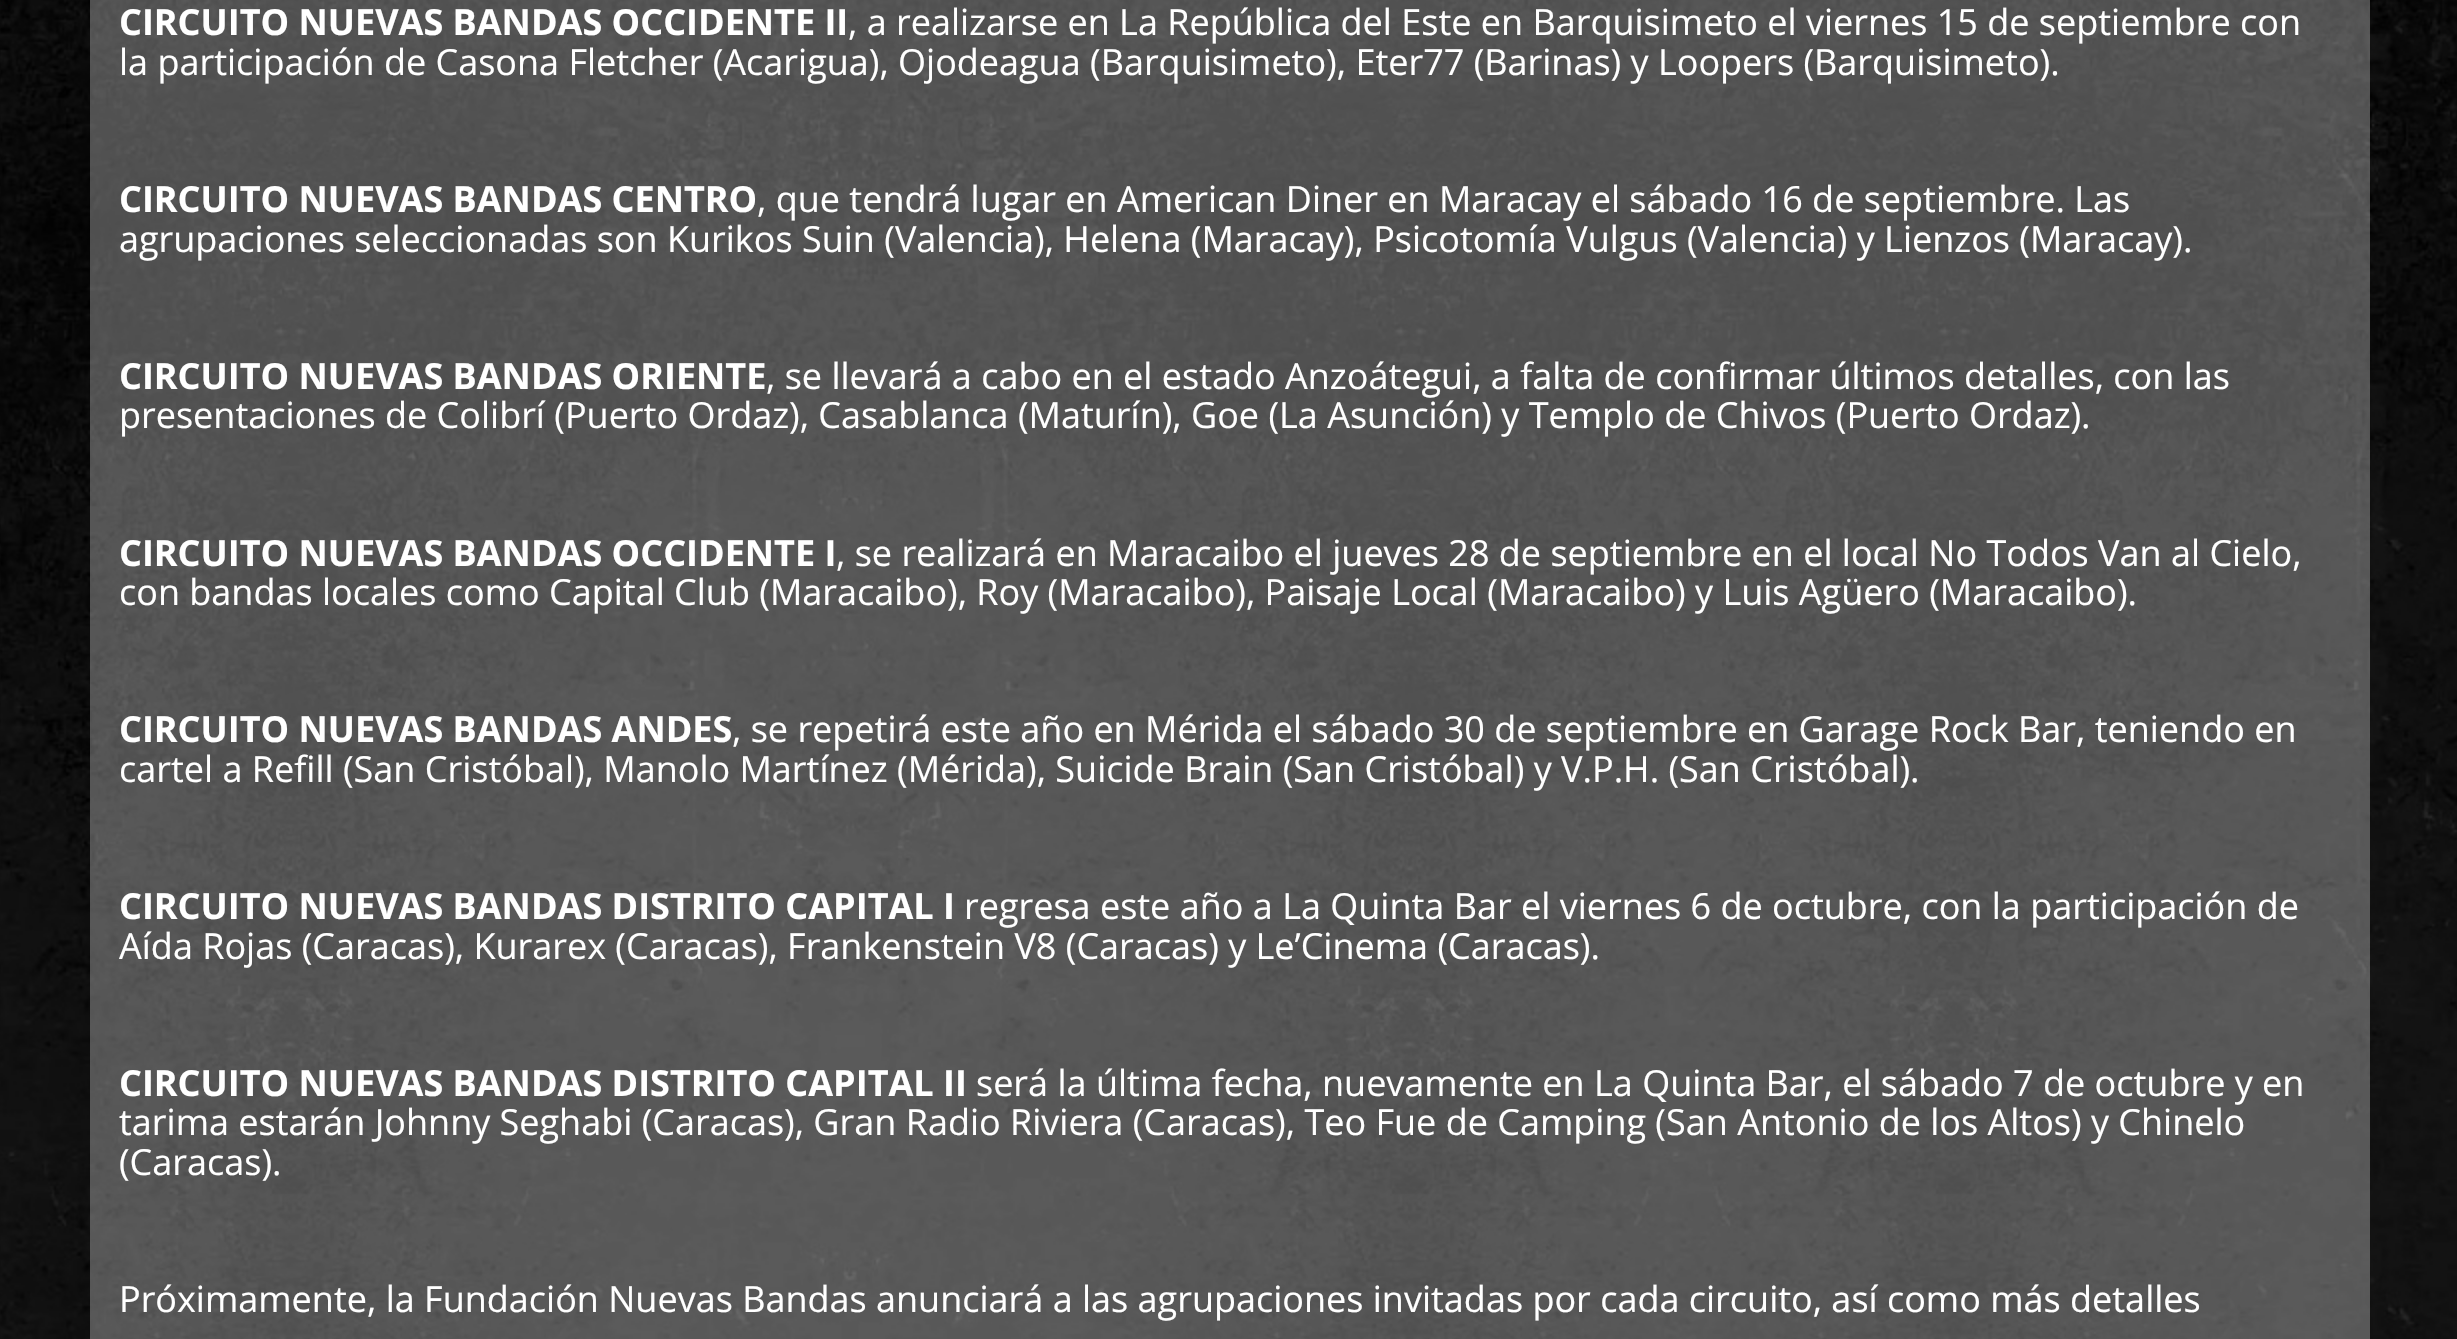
static SkFont makeFont(const char* family, int weight, float size, bool italic = false) {
  SkFontStyle style(weight, SkFontStyle::kNormal_Width,
    italic ? SkFontStyle::kItalic_Slant : SkFontStyle::kUpright_Slant);
  SkFont result(fontMgr->matchFamilyStyle(family, style), size);
  result.setSubpixel(true);
  return result;
}

static void text(SkCanvas* c, const char* s, float x, float y, const SkFont& font, SkColor color) {
  SkPaint ink(SkColor4f::FromColor(color));
  ink.setAntiAlias(true);
  c->drawString(s, x, y, font, ink);
}

static void picture(SkCanvas* c, const char* path, float l, float t, float r, float b) {
  auto image = SkImages::DeferredFromEncodedData(SkData::MakeFromFileName(path));
  c->drawImageRect(image, SkRect::MakeLTRB(l, t, r, b), SkSamplingOptions());
}

void draw(SkCanvas* c) {
  SkPaint paint;
  paint.setAntiAlias(true);
  c->clear(0xffffffff);
  picture(c, "img_01.png", 0, 0, 2457, 1339);
  SkFont face1 = makeFont("Open Sans", 700, 36);
  text(c, "CIRCUITO NUEVAS BANDAS OCCIDENTE II", 119, 35, face1, 0xffffffff);
  SkFont face2 = makeFont("Open Sans", 400, 36);
  text(c, ", a realizarse en La República del Este en Barquisimeto el viernes 15 de septiembre con", 848, 35, face2, 0xffffffff);
  text(c, "la participación de Casona Fletcher (Acarigua), Ojodeagua (Barquisimeto), Eter77 (Barinas) y Loopers (Barquisimeto).", 119, 75, face2, 0xffffffff);
  text(c, "CIRCUITO NUEVAS BANDAS CENTRO", 119, 212, face1, 0xffffffff);
  text(c, ", que tendrá lugar en American Diner en Maracay el sábado 16 de septiembre. Las", 757, 212, face2, 0xffffffff);
  text(c, "agrupaciones seleccionadas son Kurikos Suin (Valencia), Helena (Maracay), Psicotomía Vulgus (Valencia) y Lienzos (Maracay).", 119, 252, face2, 0xffffffff);
  text(c, "CIRCUITO NUEVAS BANDAS ORIENTE", 119, 389, face1, 0xffffffff);
  text(c, ", se llevará a cabo en el estado Anzoátegui, a falta de confirmar últimos detalles, con las", 766, 389, face2, 0xffffffff);
  text(c, "presentaciones de Colibrí (Puerto Ordaz), Casablanca (Maturín), Goe (La Asunción) y Templo de Chivos (Puerto Ordaz).", 119, 428, face2, 0xffffffff);
  text(c, "CIRCUITO NUEVAS BANDAS OCCIDENTE I", 119, 566, face1, 0xffffffff);
  text(c, ", se realizará en Maracaibo el jueves 28 de septiembre en el local No Todos Van al Cielo,", 836, 566, face2, 0xffffffff);
  text(c, "con bandas locales como Capital Club (Maracaibo), Roy (Maracaibo), Paisaje Local (Maracaibo) y Luis Agüero (Maracaibo).", 119, 605, face2, 0xffffffff);
  text(c, "CIRCUITO NUEVAS BANDAS ANDES", 119, 742, face1, 0xffffffff);
  text(c, ", se repetirá este año en Mérida el sábado 30 de septiembre en Garage Rock Bar, teniendo en", 732, 742, face2, 0xffffffff);
  text(c, "cartel a Refill (San Cristóbal), Manolo Martínez (Mérida), Suicide Brain (San Cristóbal) y V.P.H. (San Cristóbal).", 119, 782, face2, 0xffffffff);
  text(c, "CIRCUITO NUEVAS BANDAS DISTRITO CAPITAL I", 119, 919, face1, 0xffffffff);
  text(c, "regresa este año a La Quinta Bar el viernes 6 de octubre, con la participación de", 964, 919, face2, 0xffffffff);
  text(c, "Aída Rojas (Caracas), Kurarex (Caracas), Frankenstein V8 (Caracas) y Le’Cinema (Caracas).", 119, 959, face2, 0xffffffff);
  text(c, "CIRCUITO NUEVAS BANDAS DISTRITO CAPITAL II", 119, 1096, face1, 0xffffffff);
  text(c, "será la última fecha, nuevamente en La Quinta Bar, el sábado 7 de octubre y en", 976, 1096, face2, 0xffffffff);
  text(c, "tarima estarán Johnny Seghabi (Caracas), Gran Radio Riviera (Caracas), Teo Fue de Camping (San Antonio de los Altos) y Chinelo", 119, 1135, face2, 0xffffffff);
  text(c, "(Caracas).", 119, 1175, face2, 0xffffffff);
  text(c, "Próximamente, la Fundación Nuevas Bandas anunciará a las agrupaciones invitadas por cada circuito, así como más detalles", 119, 1312, face2, 0xffffffff);
}
